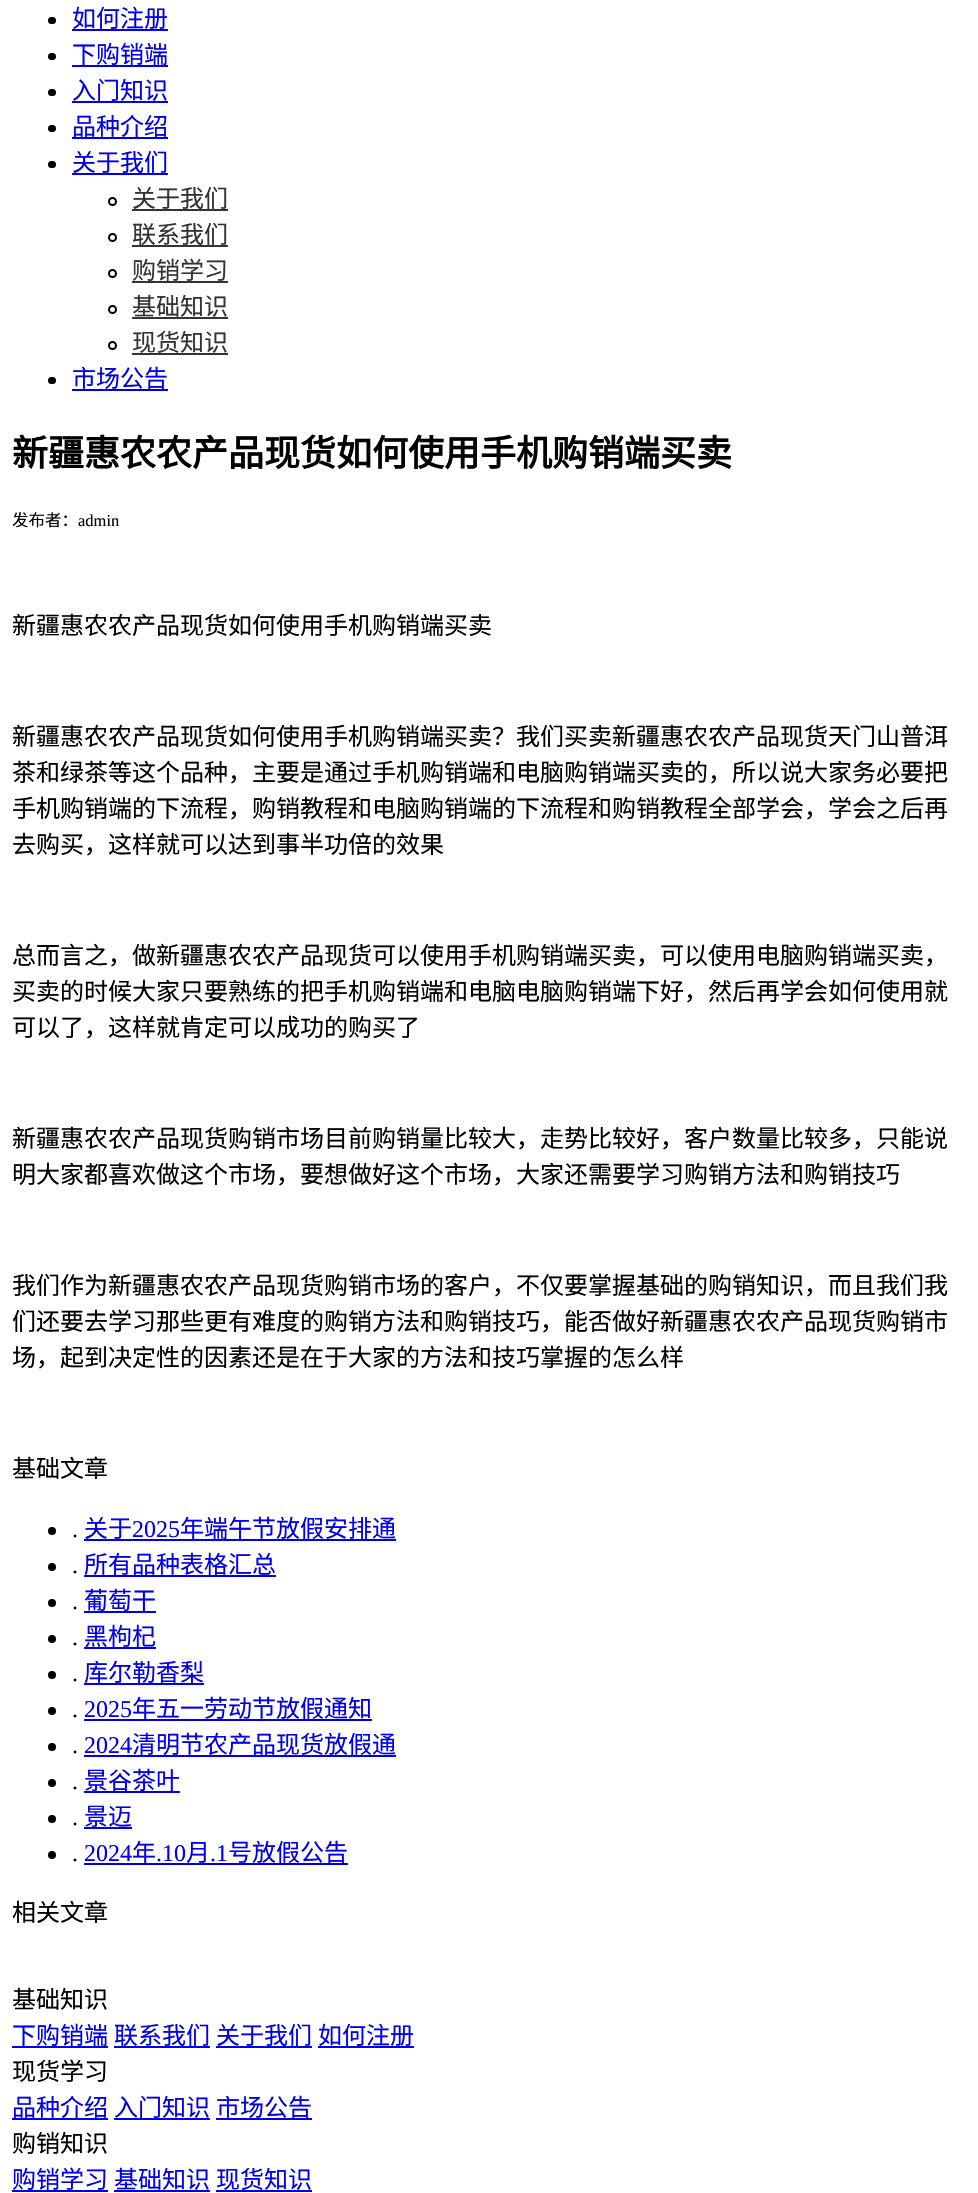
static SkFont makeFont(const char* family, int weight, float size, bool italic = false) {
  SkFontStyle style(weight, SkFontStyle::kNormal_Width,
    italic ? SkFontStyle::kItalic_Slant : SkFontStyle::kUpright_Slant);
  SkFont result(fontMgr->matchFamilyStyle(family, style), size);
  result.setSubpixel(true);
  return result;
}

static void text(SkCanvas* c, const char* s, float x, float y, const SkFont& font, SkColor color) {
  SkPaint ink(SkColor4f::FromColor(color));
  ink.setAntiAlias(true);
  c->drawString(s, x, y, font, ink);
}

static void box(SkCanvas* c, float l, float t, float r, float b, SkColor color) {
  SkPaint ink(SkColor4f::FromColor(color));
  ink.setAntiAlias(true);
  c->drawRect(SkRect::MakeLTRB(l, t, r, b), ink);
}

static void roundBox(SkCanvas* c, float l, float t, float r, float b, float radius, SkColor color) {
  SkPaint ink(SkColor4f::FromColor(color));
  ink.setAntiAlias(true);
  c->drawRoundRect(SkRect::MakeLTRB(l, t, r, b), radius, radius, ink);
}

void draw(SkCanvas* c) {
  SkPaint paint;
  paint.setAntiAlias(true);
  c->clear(0xffffffff);
  roundBox(c, 48, 17, 56, 24, 3.5f, 0xff000000);
  box(c, 72, 29, 168, 31, 0xff0000ee);
  SkFont face1 = makeFont("Noto Sans CJK SC", 400, 24);
  text(c, "如何注册", 72, 27, face1, 0xff0000ee);
  roundBox(c, 48, 53, 56, 60, 3.5f, 0xff000000);
  text(c, "下购销端", 72, 63, face1, 0xff0000ee);
  box(c, 72, 65, 168, 67, 0xff0000ee);
  roundBox(c, 48, 89, 56, 96, 3.5f, 0xff000000);
  text(c, "入门知识", 72, 99, face1, 0xff0000ee);
  box(c, 72, 101, 168, 103, 0xff0000ee);
  roundBox(c, 48, 125, 56, 132, 3.5f, 0xff000000);
  text(c, "品种介绍", 72, 135, face1, 0xff0000ee);
  box(c, 72, 137, 168, 139, 0xff0000ee);
  roundBox(c, 48, 161, 56, 168, 3.5f, 0xff000000);
  text(c, "关于我们", 72, 171, face1, 0xff0000ee);
  box(c, 72, 173, 168, 175, 0xff0000ee);
  paint.setStyle(SkPaint::kStroke_Style);
  paint.setStrokeWidth(2);
  paint.setColor(0xff000000);
  c->drawCircle(112.5f, 201.5f, 3.5f, paint);
  text(c, "关于我们", 132, 207, face1, 0xff333333);
  box(c, 132, 209, 228, 211, 0xff333333);
  c->drawCircle(112.5f, 237.5f, 3.5f, paint);
  box(c, 132, 245, 228, 247, 0xff333333);
  text(c, "联系我们", 132, 243, face1, 0xff333333);
  c->drawCircle(112.5f, 273.5f, 3.5f, paint);
  text(c, "购销学习", 132, 279, face1, 0xff333333);
  box(c, 132, 281, 228, 283, 0xff333333);
  c->drawCircle(112.5f, 309.5f, 3.5f, paint);
  text(c, "基础知识", 132, 315, face1, 0xff333333);
  box(c, 132, 317, 228, 319, 0xff333333);
  c->drawCircle(112.5f, 345.5f, 3.5f, paint);
  text(c, "现货知识", 132, 351, face1, 0xff333333);
  box(c, 132, 353, 228, 355, 0xff333333);
  roundBox(c, 48, 377, 56, 384, 3.5f, 0xff000000);
  box(c, 72, 389, 168, 391, 0xff0000ee);
  text(c, "市场公告", 72, 387, face1, 0xff0000ee);
  SkFont face2 = makeFont("Noto Sans CJK SC", 700, 36);
  text(c, "新疆惠农农产品现货如何使用手机购销端买卖", 12, 466, face2, 0xff000000);
  SkFont face3 = makeFont("Noto Sans CJK SC", 400, 16.5f);
  text(c, "发布者：", 12, 526, face3, 0xff000000);
  SkFont face4 = makeFont("Liberation Serif", 400, 16.5f);
  text(c, "admin", 78, 526, face4, 0xff000000);
  text(c, "新疆惠农农产品现货如何使用手机购销端买卖", 12, 634, face1, 0xff000000);
  text(c, "新疆惠农农产品现货如何使用手机购销端买卖？我们买卖新疆惠农农产品现货天门山普洱", 12, 745, face1, 0xff000000);
  text(c, "茶和绿茶等这个品种，主要是通过手机购销端和电脑购销端买卖的，所以说大家务必要把", 12, 781, face1, 0xff000000);
  text(c, "手机购销端的下流程，购销教程和电脑购销端的下流程和购销教程全部学会，学会之后再", 12, 817, face1, 0xff000000);
  text(c, "去购买，这样就可以达到事半功倍的效果", 12, 853, face1, 0xff000000);
  text(c, "总而言之，做新疆惠农农产品现货可以使用手机购销端买卖，可以使用电脑购销端买卖，", 12, 964, face1, 0xff000000);
  text(c, "买卖的时候大家只要熟练的把手机购销端和电脑电脑购销端下好，然后再学会如何使用就", 12, 1000, face1, 0xff000000);
  text(c, "可以了，这样就肯定可以成功的购买了", 12, 1036, face1, 0xff000000);
  text(c, "新疆惠农农产品现货购销市场目前购销量比较大，走势比较好，客户数量比较多，只能说", 12, 1147, face1, 0xff000000);
  text(c, "明大家都喜欢做这个市场，要想做好这个市场，大家还需要学习购销方法和购销技巧", 12, 1183, face1, 0xff000000);
  text(c, "我们作为新疆惠农农产品现货购销市场的客户，不仅要掌握基础的购销知识，而且我们我", 12, 1294, face1, 0xff000000);
  text(c, "们还要去学习那些更有难度的购销方法和购销技巧，能否做好新疆惠农农产品现货购销市", 12, 1330, face1, 0xff000000);
  text(c, "场，起到决定性的因素还是在于大家的方法和技巧掌握的怎么样", 12, 1366, face1, 0xff000000);
  text(c, "基础文章", 12, 1477, face1, 0xff000000);
  paint.setStyle(SkPaint::kFill_Style);
  c->drawCircle(52, 1531, 4, paint);
  text(c, "关于", 84, 1537, face1, 0xff0000ee);
  SkFont face5 = makeFont("Liberation Serif", 400, 24);
  text(c, "2025", 132, 1537, face5, 0xff0000ee);
  box(c, 84, 1539, 396, 1541, 0xff0000ee);
  text(c, "年端午节放假安排通", 180, 1537, face1, 0xff0000ee);
  text(c, ".", 72, 1537, face5, 0xff000000);
  c->drawCircle(52, 1567, 4, paint);
  text(c, "所有品种表格汇总", 84, 1573, face1, 0xff0000ee);
  box(c, 84, 1575, 276, 1577, 0xff0000ee);
  text(c, ".", 72, 1573, face5, 0xff000000);
  c->drawCircle(52, 1603, 4, paint);
  text(c, "葡萄干", 84, 1609, face1, 0xff0000ee);
  box(c, 84, 1611, 156, 1613, 0xff0000ee);
  text(c, ".", 72, 1609, face5, 0xff000000);
  c->drawCircle(52, 1639, 4, paint);
  text(c, "黑枸杞", 84, 1645, face1, 0xff0000ee);
  box(c, 84, 1647, 156, 1649, 0xff0000ee);
  text(c, ".", 72, 1645, face5, 0xff000000);
  c->drawCircle(52, 1675, 4, paint);
  text(c, "库尔勒香梨", 84, 1681, face1, 0xff0000ee);
  box(c, 84, 1683, 204, 1685, 0xff0000ee);
  text(c, ".", 72, 1681, face5, 0xff000000);
  c->drawCircle(52, 1711, 4, paint);
  text(c, "2025", 84, 1717, face5, 0xff0000ee);
  box(c, 84, 1719, 372, 1721, 0xff0000ee);
  text(c, "年五一劳动节放假通知", 132, 1717, face1, 0xff0000ee);
  text(c, ".", 72, 1717, face5, 0xff000000);
  c->drawCircle(52, 1747, 4, paint);
  text(c, "2024", 84, 1753, face5, 0xff0000ee);
  box(c, 84, 1755, 396, 1757, 0xff0000ee);
  text(c, "清明节农产品现货放假通", 132, 1753, face1, 0xff0000ee);
  text(c, ".", 72, 1753, face5, 0xff000000);
  c->drawCircle(52, 1783, 4, paint);
  text(c, "景谷茶叶", 84, 1789, face1, 0xff0000ee);
  box(c, 84, 1791, 180, 1793, 0xff0000ee);
  text(c, ".", 72, 1789, face5, 0xff000000);
  c->drawCircle(52, 1819, 4, paint);
  text(c, "景迈", 84, 1825, face1, 0xff0000ee);
  box(c, 84, 1827, 132, 1829, 0xff0000ee);
  text(c, ".", 72, 1825, face5, 0xff000000);
  c->drawCircle(52, 1855, 4, paint);
  text(c, "2024", 84, 1861, face5, 0xff0000ee);
  box(c, 84, 1863, 348, 1865, 0xff0000ee);
  text(c, "年", 132, 1861, face1, 0xff0000ee);
  text(c, ".10", 156, 1861, face5, 0xff0000ee);
  text(c, "月", 186, 1861, face1, 0xff0000ee);
  text(c, ".1", 210, 1861, face5, 0xff0000ee);
  text(c, "号放假公告", 228, 1861, face1, 0xff0000ee);
  text(c, ".", 72, 1861, face5, 0xff000000);
  text(c, "相关文章", 12, 1921, face1, 0xff000000);
  text(c, "基础知识", 12, 2008, face1, 0xff000000);
  text(c, "下购销端", 12, 2044, face1, 0xff0000ee);
  box(c, 12, 2046, 108, 2048, 0xff0000ee);
  box(c, 114, 2046, 210, 2048, 0xff0000ee);
  text(c, "联系我们", 114, 2044, face1, 0xff0000ee);
  text(c, "关于我们", 216, 2044, face1, 0xff0000ee);
  box(c, 216, 2046, 312, 2048, 0xff0000ee);
  box(c, 318, 2046, 414, 2048, 0xff0000ee);
  text(c, "如何注册", 318, 2044, face1, 0xff0000ee);
  text(c, "现货学习", 12, 2080, face1, 0xff000000);
  text(c, "品种介绍", 12, 2116, face1, 0xff0000ee);
  box(c, 12, 2118, 108, 2120, 0xff0000ee);
  text(c, "入门知识", 114, 2116, face1, 0xff0000ee);
  box(c, 114, 2118, 210, 2120, 0xff0000ee);
  box(c, 216, 2118, 312, 2120, 0xff0000ee);
  text(c, "市场公告", 216, 2116, face1, 0xff0000ee);
  text(c, "购销知识", 12, 2152, face1, 0xff000000);
  text(c, "购销学习", 12, 2188, face1, 0xff0000ee);
  box(c, 12, 2190, 108, 2192, 0xff0000ee);
  text(c, "基础知识", 114, 2188, face1, 0xff0000ee);
  box(c, 114, 2190, 210, 2192, 0xff0000ee);
  text(c, "现货知识", 216, 2188, face1, 0xff0000ee);
  box(c, 216, 2190, 312, 2192, 0xff0000ee);
}
